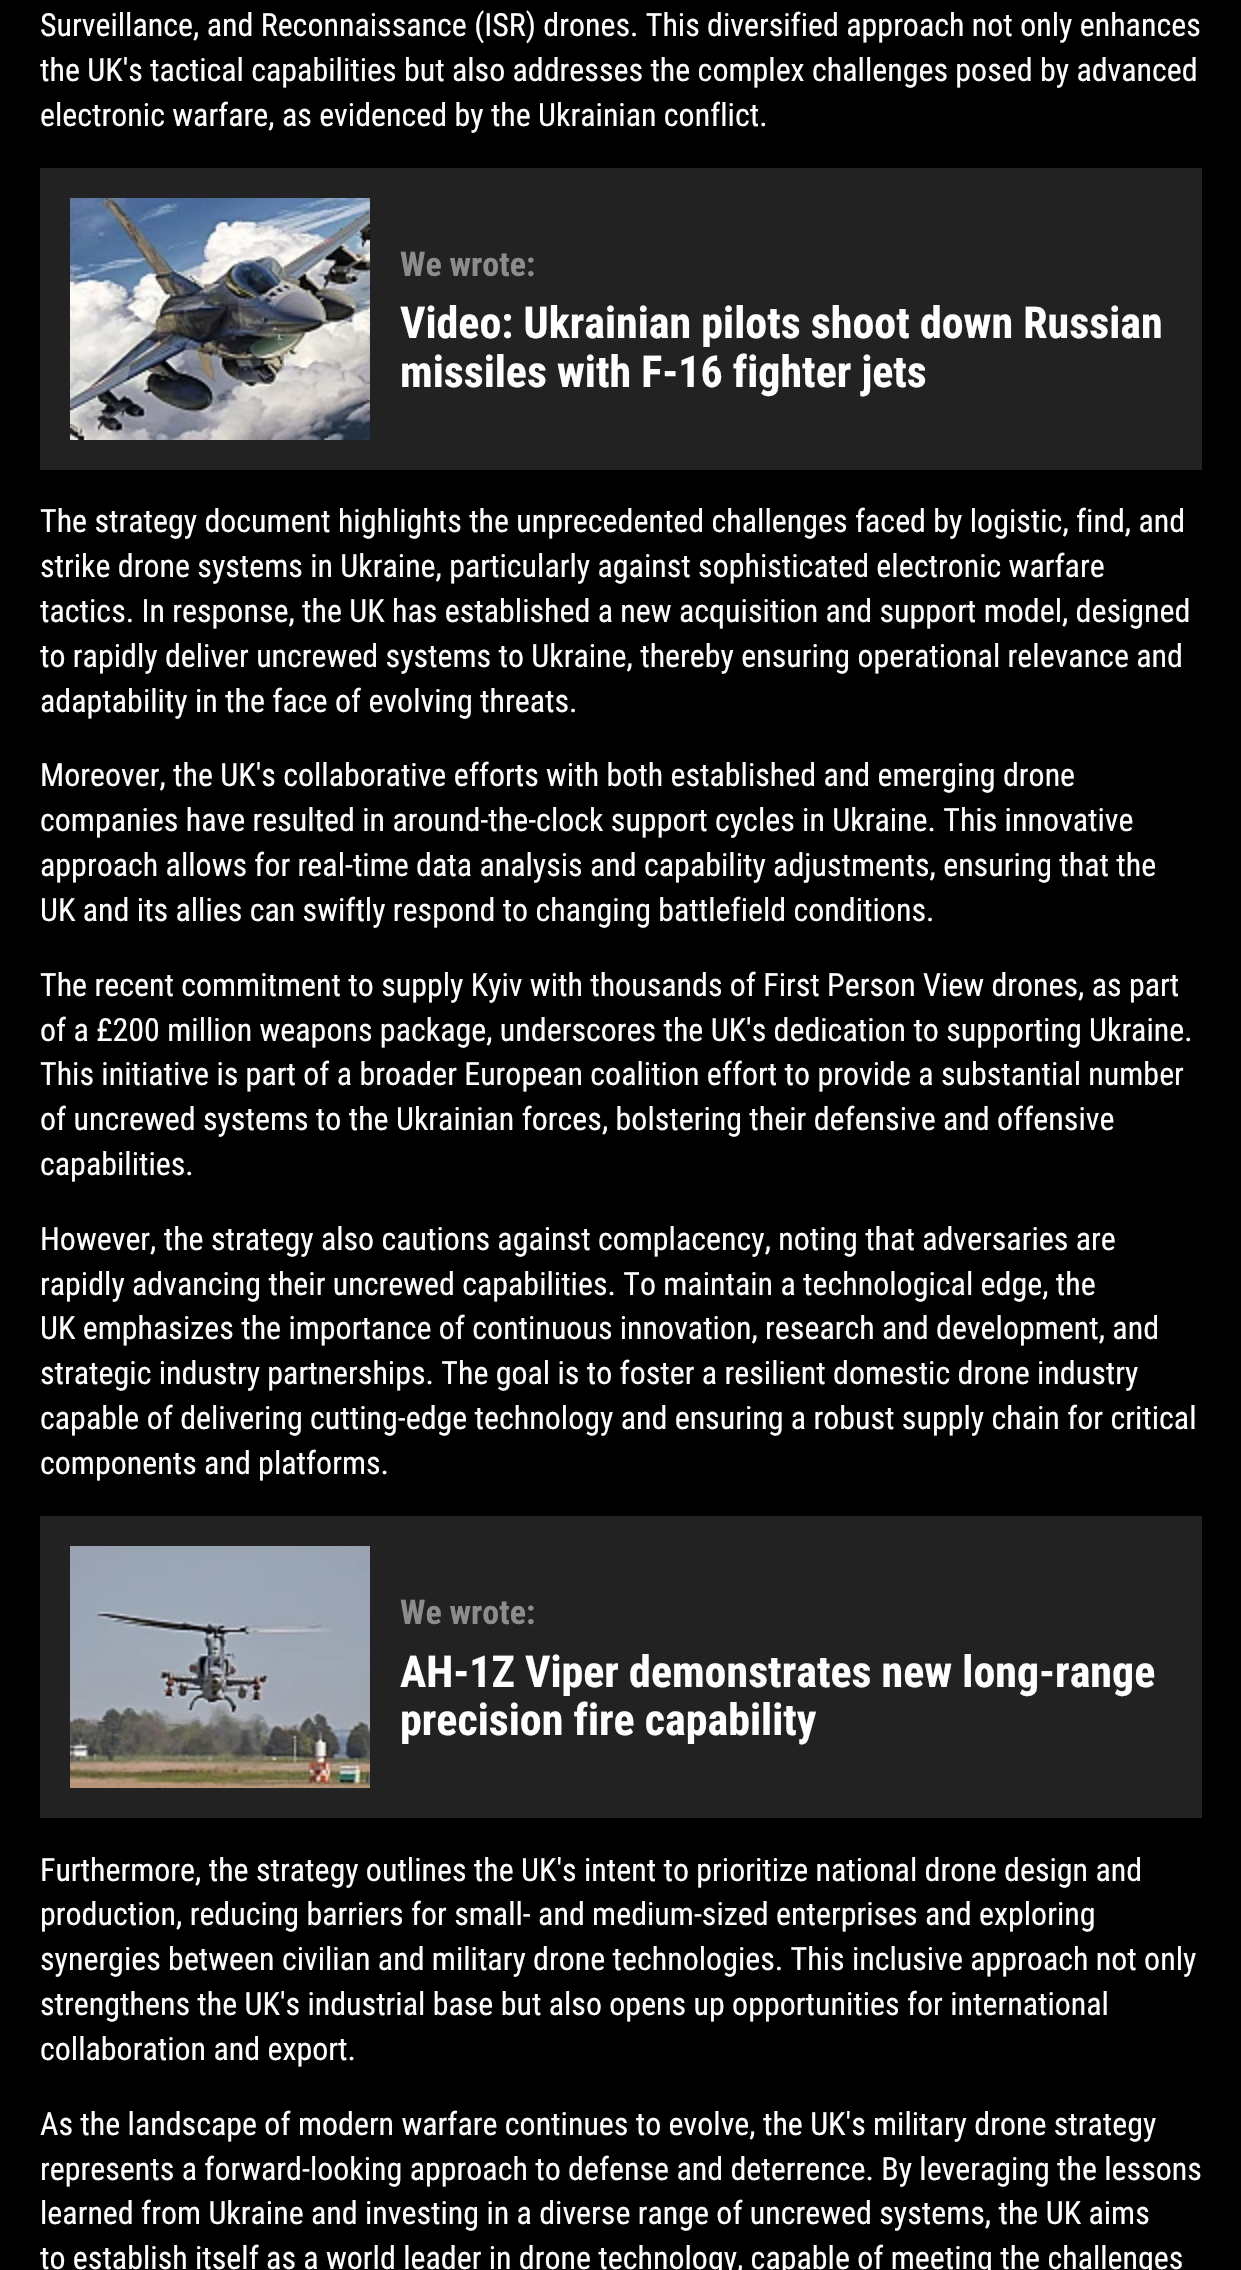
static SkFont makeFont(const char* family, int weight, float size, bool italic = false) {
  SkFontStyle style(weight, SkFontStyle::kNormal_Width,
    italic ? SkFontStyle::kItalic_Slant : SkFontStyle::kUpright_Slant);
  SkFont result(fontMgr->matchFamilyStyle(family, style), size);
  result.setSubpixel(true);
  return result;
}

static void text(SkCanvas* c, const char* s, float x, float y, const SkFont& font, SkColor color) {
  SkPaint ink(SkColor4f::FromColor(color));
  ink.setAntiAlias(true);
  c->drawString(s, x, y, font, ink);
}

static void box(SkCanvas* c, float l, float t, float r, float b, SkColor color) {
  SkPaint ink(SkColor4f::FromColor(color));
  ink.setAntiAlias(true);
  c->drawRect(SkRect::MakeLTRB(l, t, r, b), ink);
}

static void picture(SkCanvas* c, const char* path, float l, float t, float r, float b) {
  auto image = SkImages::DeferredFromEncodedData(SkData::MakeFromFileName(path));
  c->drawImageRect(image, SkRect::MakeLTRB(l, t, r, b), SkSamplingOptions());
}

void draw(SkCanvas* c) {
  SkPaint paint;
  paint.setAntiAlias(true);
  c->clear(0xff000000);
  SkFont face1 = makeFont("Roboto Condensed", 400, 32);
  text(c, "Surveillance, and Reconnaissance (ISR) drones. This diversified approach not only enhances", 40, 36, face1, 0xffffffff);
  text(c, "the UK's tactical capabilities but also addresses the complex challenges posed by advanced", 40, 81, face1, 0xffffffff);
  text(c, "electronic warfare, as evidenced by the Ukrainian conflict.", 40, 126, face1, 0xffffffff);
  box(c, 40, 168, 1202, 470, 0xff222222);
  picture(c, "img_01.png", 70, 198, 370, 440);
  SkFont face2 = makeFont("Roboto Condensed", 700, 34);
  text(c, "We wrote:", 400, 276, face2, 0xff8c8c8c);
  SkFont face3 = makeFont("Roboto Condensed", 700, 44);
  text(c, "Video: Ukrainian pilots shoot down Russian", 400, 338, face3, 0xffffffff);
  text(c, "missiles with F-16 fighter jets", 400, 387, face3, 0xffffffff);
  text(c, "The strategy document highlights the unprecedented challenges faced by logistic, find, and", 40, 532, face1, 0xffffffff);
  text(c, "strike drone systems in Ukraine, particularly against sophisticated electronic warfare", 40, 577, face1, 0xffffffff);
  text(c, "tactics. In response, the UK has established a new acquisition and support model, designed", 40, 622, face1, 0xffffffff);
  text(c, "to rapidly deliver uncrewed systems to Ukraine, thereby ensuring operational relevance and", 40, 667, face1, 0xffffffff);
  text(c, "adaptability in the face of evolving threats.", 40, 712, face1, 0xffffffff);
  text(c, "Moreover, the UK's collaborative efforts with both established and emerging drone", 40, 786, face1, 0xffffffff);
  text(c, "companies have resulted in around-the-clock support cycles in Ukraine. This innovative", 40, 831, face1, 0xffffffff);
  text(c, "approach allows for real-time data analysis and capability adjustments, ensuring that the", 40, 876, face1, 0xffffffff);
  text(c, "UK and its allies can swiftly respond to changing battlefield conditions.", 40, 921, face1, 0xffffffff);
  text(c, "The recent commitment to supply Kyiv with thousands of First Person View drones, as part", 40, 996, face1, 0xffffffff);
  text(c, "of a £200 million weapons package, underscores the UK's dedication to supporting Ukraine.", 40, 1041, face1, 0xffffffff);
  text(c, "This initiative is part of a broader European coalition effort to provide a substantial number", 40, 1085, face1, 0xffffffff);
  text(c, "of uncrewed systems to the Ukrainian forces, bolstering their defensive and offensive", 40, 1130, face1, 0xffffffff);
  text(c, "capabilities.", 40, 1175, face1, 0xffffffff);
  text(c, "However, the strategy also cautions against complacency, noting that adversaries are", 40, 1250, face1, 0xffffffff);
  text(c, "rapidly advancing their uncrewed capabilities. To maintain a technological edge, the", 40, 1295, face1, 0xffffffff);
  text(c, "UK emphasizes the importance of continuous innovation, research and development, and", 40, 1339, face1, 0xffffffff);
  text(c, "strategic industry partnerships. The goal is to foster a resilient domestic drone industry", 40, 1384, face1, 0xffffffff);
  text(c, "capable of delivering cutting-edge technology and ensuring a robust supply chain for critical", 40, 1429, face1, 0xffffffff);
  text(c, "components and platforms.", 40, 1474, face1, 0xffffffff);
  box(c, 40, 1516, 1202, 1818, 0xff222222);
  picture(c, "img_02.png", 70, 1546, 370, 1788);
  text(c, "We wrote:", 400, 1624, face2, 0xff8c8c8c);
  text(c, "AH-1Z Viper demonstrates new long-range", 400, 1687, face3, 0xffffffff);
  text(c, "precision fire capability", 400, 1735, face3, 0xffffffff);
  text(c, "Furthermore, the strategy outlines the UK's intent to prioritize national drone design and", 40, 1881, face1, 0xffffffff);
  text(c, "production, reducing barriers for small- and medium-sized enterprises and exploring", 40, 1925, face1, 0xffffffff);
  text(c, "synergies between civilian and military drone technologies. This inclusive approach not only", 40, 1970, face1, 0xffffffff);
  text(c, "strengthens the UK's industrial base but also opens up opportunities for international", 40, 2015, face1, 0xffffffff);
  text(c, "collaboration and export.", 40, 2060, face1, 0xffffffff);
  text(c, "As the landscape of modern warfare continues to evolve, the UK's military drone strategy", 40, 2135, face1, 0xffffffff);
  text(c, "represents a forward-looking approach to defense and deterrence. By leveraging the lessons", 40, 2180, face1, 0xffffffff);
  text(c, "learned from Ukraine and investing in a diverse range of uncrewed systems, the UK aims", 40, 2224, face1, 0xffffffff);
  text(c, "to establish itself as a world leader in drone technology, capable of meeting the challenges", 40, 2269, face1, 0xffffffff);
}
